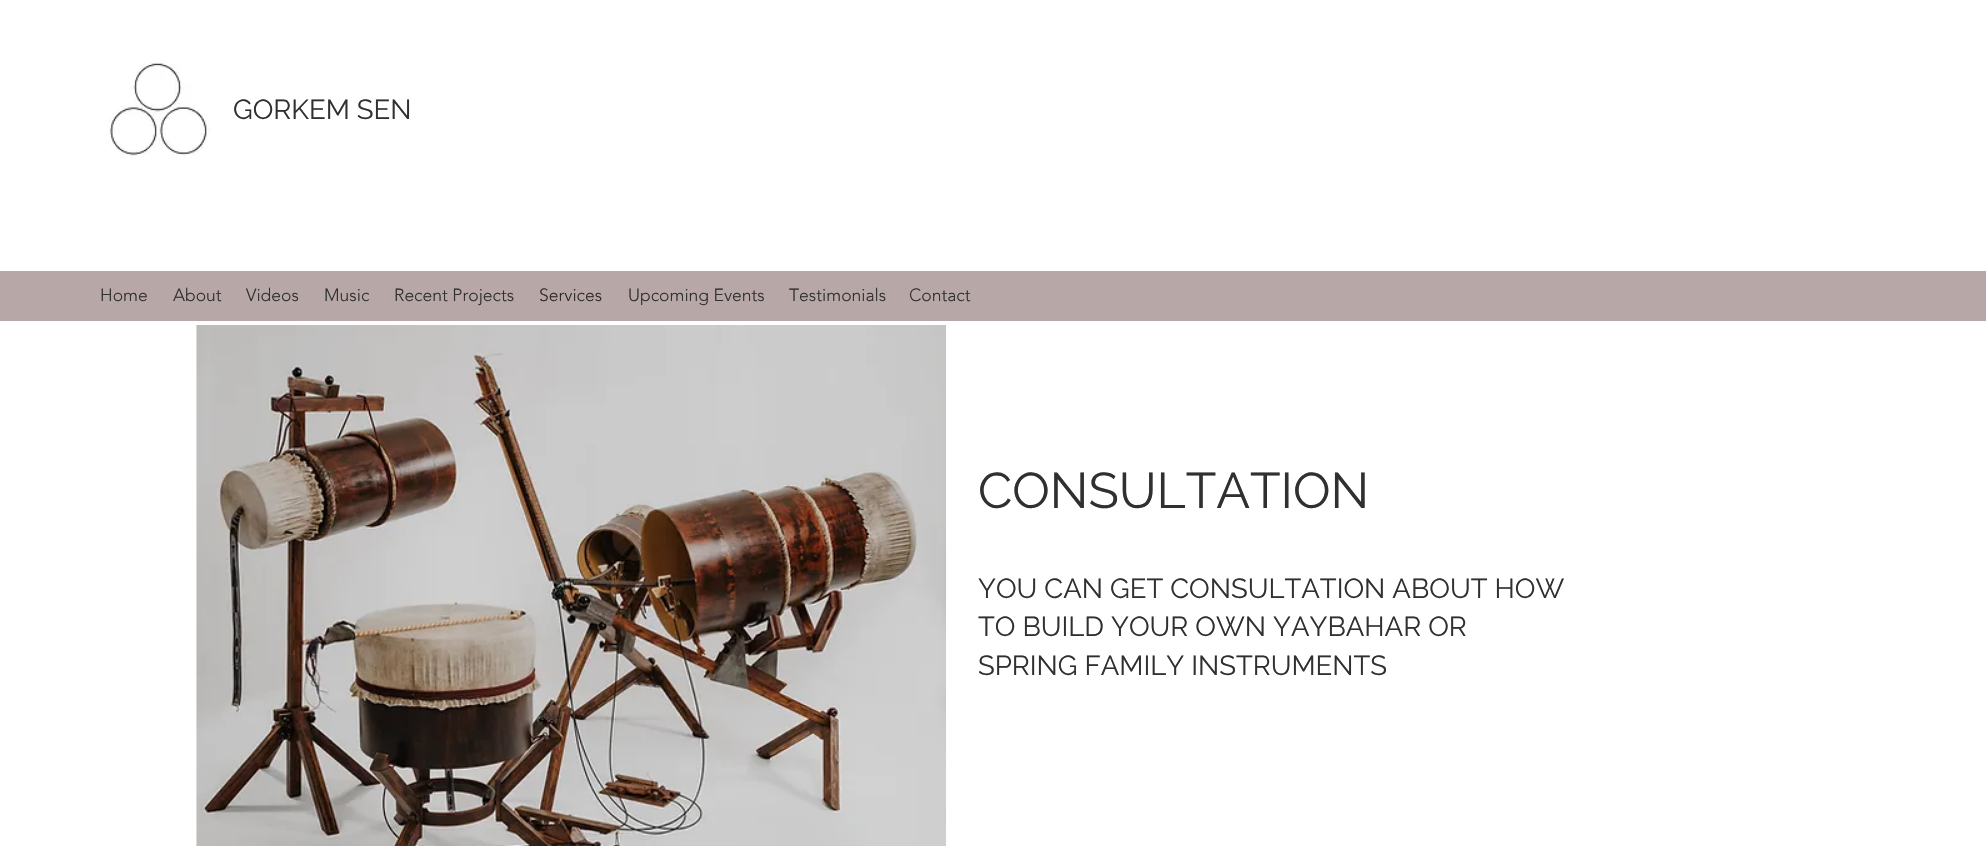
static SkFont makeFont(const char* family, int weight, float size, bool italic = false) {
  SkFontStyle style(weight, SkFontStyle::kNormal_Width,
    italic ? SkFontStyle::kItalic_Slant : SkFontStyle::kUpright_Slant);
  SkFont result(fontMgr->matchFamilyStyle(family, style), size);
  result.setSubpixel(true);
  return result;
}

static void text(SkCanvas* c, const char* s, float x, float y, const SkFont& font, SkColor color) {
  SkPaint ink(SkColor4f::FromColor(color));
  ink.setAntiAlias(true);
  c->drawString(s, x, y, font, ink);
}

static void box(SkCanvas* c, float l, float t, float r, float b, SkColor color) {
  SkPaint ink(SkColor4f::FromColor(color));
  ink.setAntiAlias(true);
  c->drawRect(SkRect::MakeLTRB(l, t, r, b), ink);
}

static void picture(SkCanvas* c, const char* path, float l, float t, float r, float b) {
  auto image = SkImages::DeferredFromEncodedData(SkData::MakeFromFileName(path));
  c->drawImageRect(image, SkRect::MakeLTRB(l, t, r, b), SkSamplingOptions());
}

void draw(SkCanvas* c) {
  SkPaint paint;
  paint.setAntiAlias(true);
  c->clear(0xffffffff);
  picture(c, "img_01.png", 109, 61, 210, 156);
  SkFont face1 = makeFont("Raleway", 400, 27.5f);
  text(c, "GORKEM SEN", 233, 119, face1, 0xff303030);
  box(c, 0, 271, 1986, 321, 0xffb7a7a7);
  SkFont face2 = makeFont("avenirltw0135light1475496", 300, 17.5f);
  text(c, "Home", 100, 301, face2, 0xff303030);
  text(c, "About", 173, 301, face2, 0xff303030);
  text(c, "Videos", 246, 301, face2, 0xff303030);
  text(c, "Music", 324, 301, face2, 0xff303030);
  text(c, "Recent Projects", 394, 301, face2, 0xff303030);
  text(c, "Services", 539, 301, face2, 0xff2e2b26);
  text(c, "Upcoming Events", 628, 301, face2, 0xff303030);
  text(c, "Testimonials", 789, 301, face2, 0xff303030);
  text(c, "Contact", 909, 301, face2, 0xff303030);
  picture(c, "img_02.png", 196, 325, 947, 846);
  SkFont face3 = makeFont("Raleway", 400, 50);
  text(c, "CONSULTATION", 978, 508, face3, 0xff303030);
  text(c, "YOU CAN GET CONSULTATION ABOUT HOW", 978, 598, face1, 0xff303030);
  text(c, "TO BUILD YOUR OWN YAYBAHAR OR", 978, 636, face1, 0xff303030);
  text(c, "SPRING FAMILY INSTRUMENTS", 978, 675, face1, 0xff303030);
}
